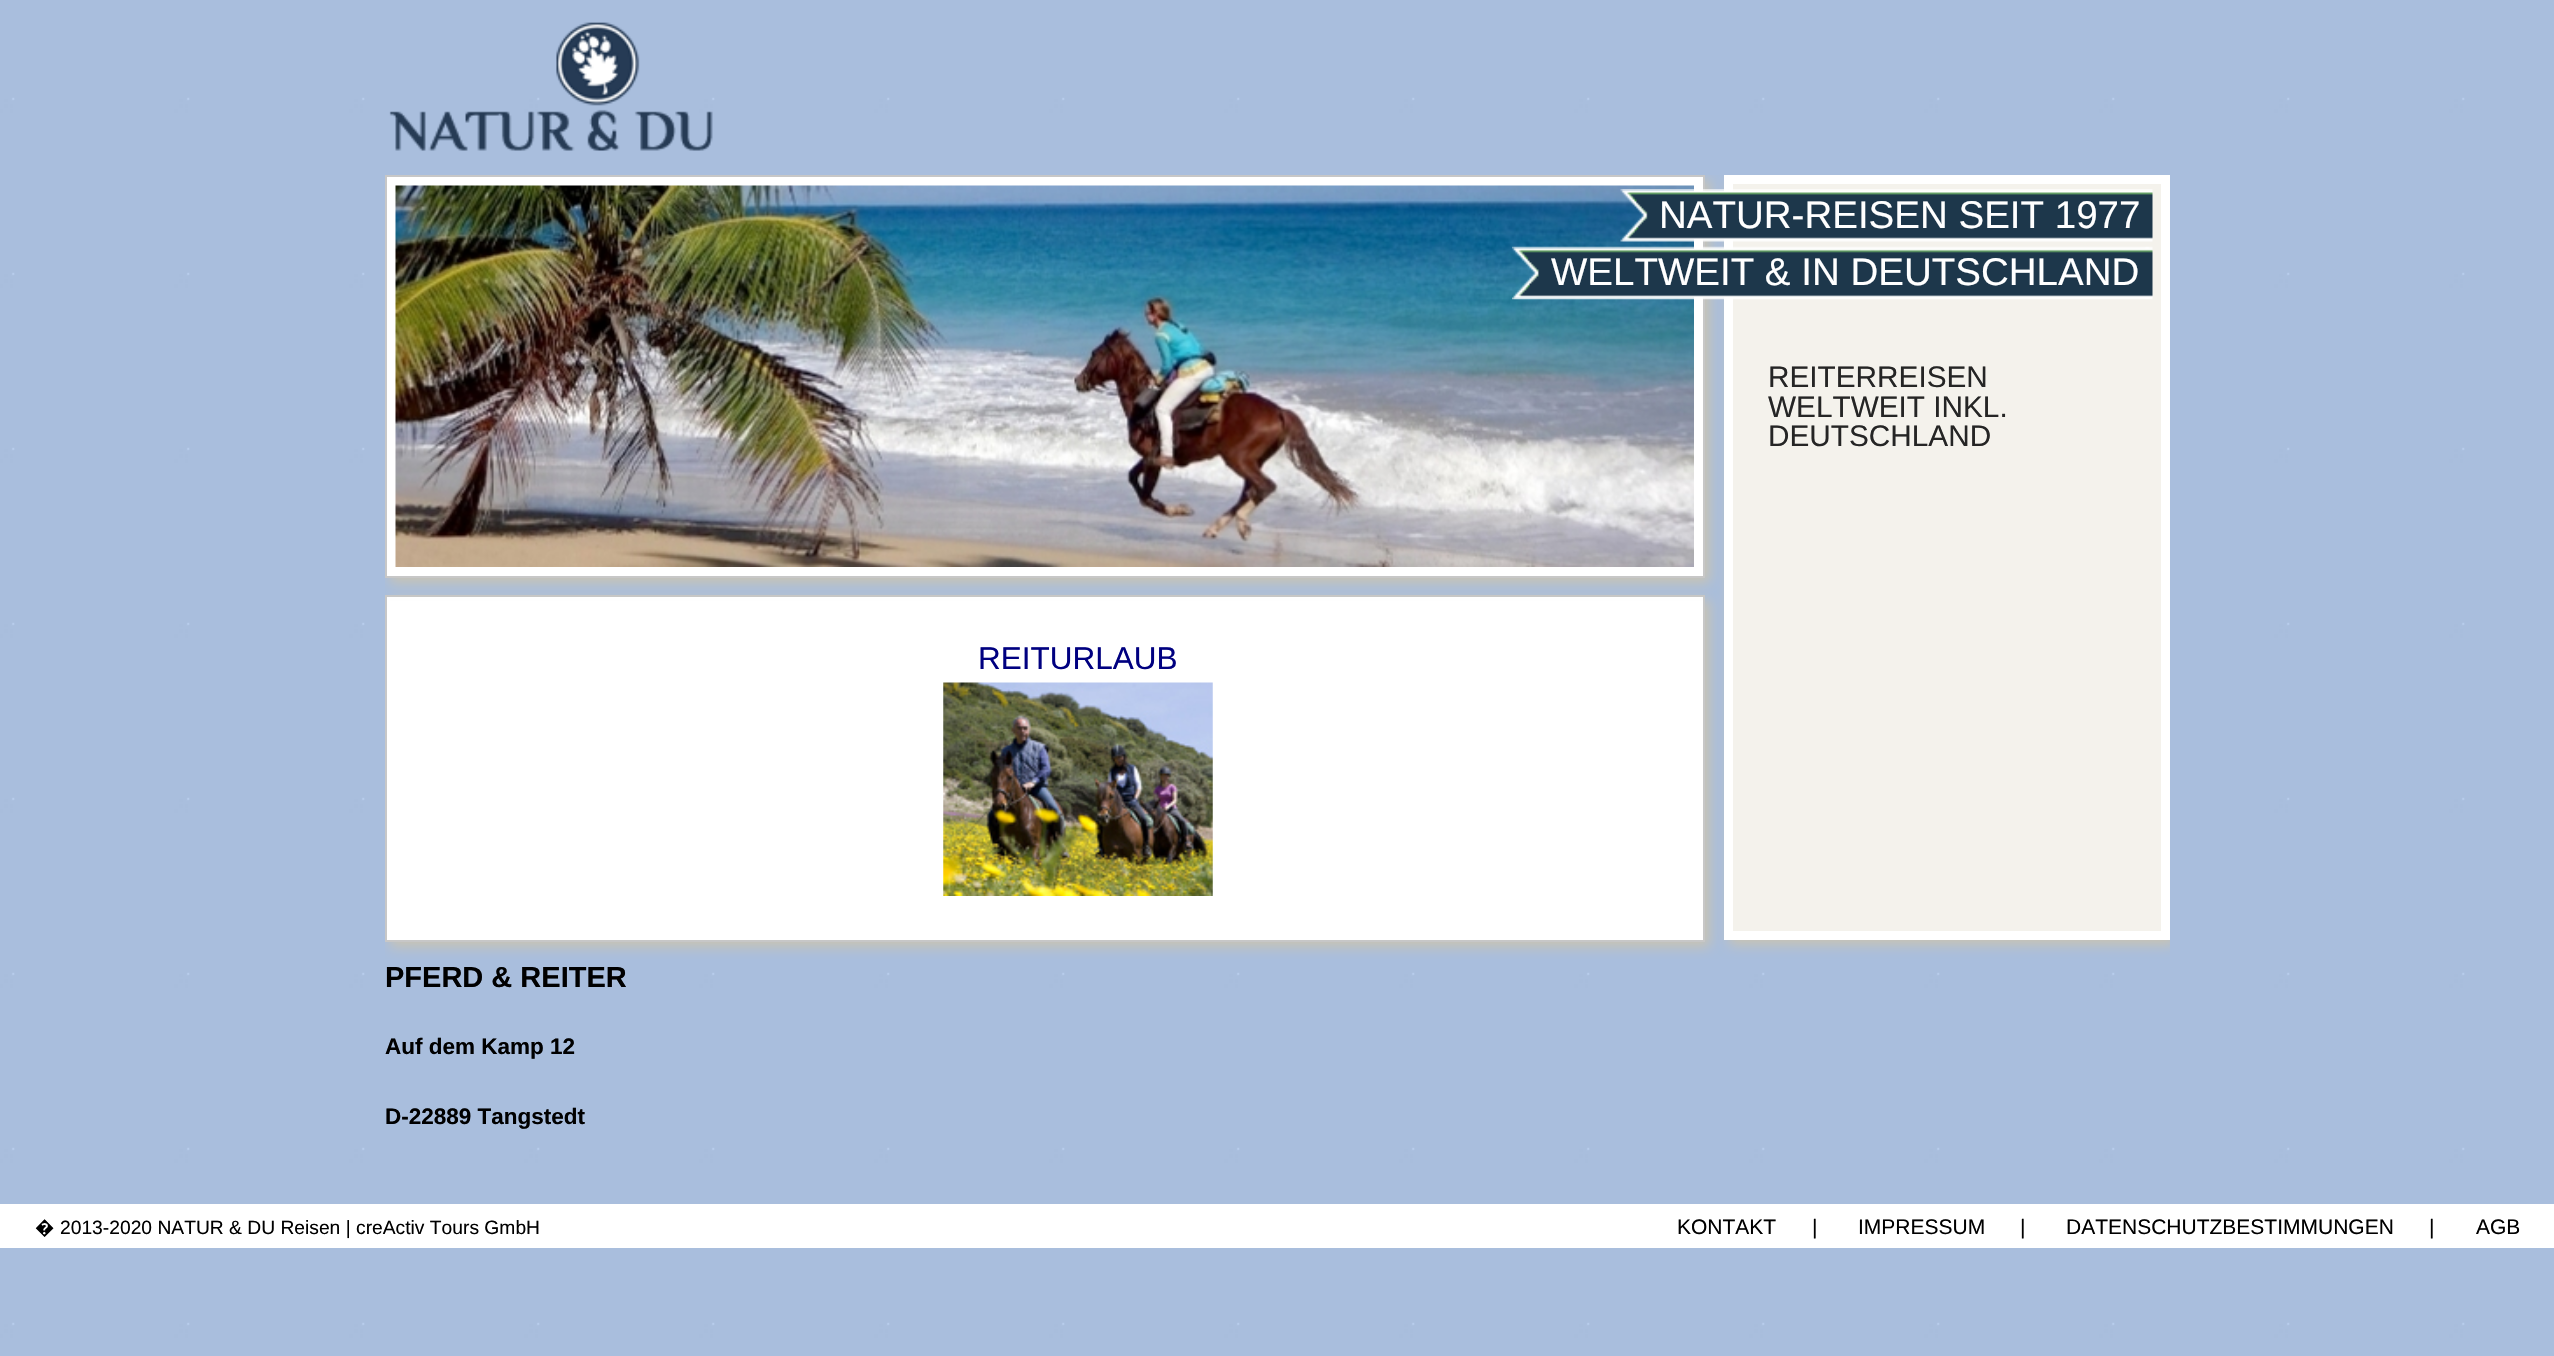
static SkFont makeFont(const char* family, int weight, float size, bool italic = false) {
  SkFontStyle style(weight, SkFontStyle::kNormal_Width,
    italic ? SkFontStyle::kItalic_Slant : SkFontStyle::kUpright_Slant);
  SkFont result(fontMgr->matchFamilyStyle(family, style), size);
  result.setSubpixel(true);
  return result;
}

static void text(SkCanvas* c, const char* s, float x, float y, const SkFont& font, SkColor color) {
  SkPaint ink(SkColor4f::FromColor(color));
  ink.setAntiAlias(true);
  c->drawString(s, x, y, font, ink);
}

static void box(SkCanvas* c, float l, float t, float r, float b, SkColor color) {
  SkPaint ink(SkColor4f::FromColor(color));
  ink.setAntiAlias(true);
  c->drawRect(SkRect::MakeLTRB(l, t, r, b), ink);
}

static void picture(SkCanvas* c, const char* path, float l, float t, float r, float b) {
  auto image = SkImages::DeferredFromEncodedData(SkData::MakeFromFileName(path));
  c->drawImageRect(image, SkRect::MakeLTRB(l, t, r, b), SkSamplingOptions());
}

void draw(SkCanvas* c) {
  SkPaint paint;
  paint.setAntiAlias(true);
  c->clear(0xffffffff);
  picture(c, "img_01.png", 0, 0, 2554, 1356);
  picture(c, "img_02.png", 389, 22, 713, 151);
  c->save();
  c->clipRect(SkRect::MakeLTRB(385, 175, 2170, 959));
  paint.setColor(0xffcac4b2);
  paint.setMaskFilter(SkMaskFilter::MakeBlur(kNormal_SkBlurStyle, 6));
  c->drawRect(SkRect::MakeLTRB(1729, 180, 2175, 945), paint);
  paint.setMaskFilter(nullptr);
  paint.setMaskFilter(SkMaskFilter::MakeBlur(kNormal_SkBlurStyle, 6));
  c->drawRect(SkRect::MakeLTRB(390, 600, 1710, 947), paint);
  paint.setMaskFilter(nullptr);
  c->restore();
  paint.setColor(0xffffffff);
  c->drawRect(SkRect::MakeLTRB(386, 596, 1704, 941), paint);
  paint.setStyle(SkPaint::kStroke_Style);
  paint.setStrokeWidth(2);
  paint.setColor(0xffc7c7c7);
  c->drawRect(SkRect::MakeLTRB(386, 596, 1704, 941), paint);
  c->save();
  c->clipRect(SkRect::MakeLTRB(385, 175, 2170, 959));
  paint.setStyle(SkPaint::kFill_Style);
  paint.setColor(0xffcac4b2);
  paint.setMaskFilter(SkMaskFilter::MakeBlur(kNormal_SkBlurStyle, 6));
  c->drawRect(SkRect::MakeLTRB(390, 180, 1710, 583), paint);
  paint.setMaskFilter(nullptr);
  c->restore();
  paint.setColor(0xfff4f2ec);
  c->drawRect(SkRect::MakeLTRB(1728.5f, 179.5f, 2165.5f, 935.5f), paint);
  paint.setStyle(SkPaint::kStroke_Style);
  paint.setStrokeWidth(9);
  paint.setColor(0xffffffff);
  c->drawRect(SkRect::MakeLTRB(1728.5f, 179.5f, 2165.5f, 935.5f), paint);
  paint.setStyle(SkPaint::kFill_Style);
  c->drawRect(SkRect::MakeLTRB(386, 176, 1704, 577), paint);
  paint.setStyle(SkPaint::kStroke_Style);
  paint.setStrokeWidth(2);
  paint.setColor(0xffc7c7c7);
  c->drawRect(SkRect::MakeLTRB(386, 176, 1704, 577), paint);
  picture(c, "img_05.png", 395, 185, 1694, 567);
  picture(c, "img_03.png", 1620, 189, 2153, 242);
  SkFont face1 = makeFont("Liberation Sans", 400, 38.5f);
  text(c, "NATUR-REISEN SEIT 1977", 1659, 228, face1, 0xffffffff);
  picture(c, "img_04.png", 1512, 246, 2153, 300);
  text(c, "WELTWEIT & IN DEUTSCHLAND", 1551, 285, face1, 0xffffffff);
  SkFont face2 = makeFont("Liberation Sans", 400, 29.75f);
  text(c, "REITERREISEN", 1768, 387, face2, 0xff252525);
  text(c, "WELTWEIT INKL.", 1768, 417, face2, 0xff252525);
  text(c, "DEUTSCHLAND", 1768, 446, face2, 0xff252525);
  SkFont face3 = makeFont("Liberation Sans", 400, 31.5f);
  text(c, "REITURLAUB", 978, 669, face3, 0xff000080);
  picture(c, "img_06.png", 943, 682, 1213, 896);
  SkFont face4 = makeFont("Liberation Sans", 700, 29);
  text(c, "PFERD & REITER", 385, 987, face4, 0xff000000);
  SkFont face5 = makeFont("Liberation Sans", 700, 22.5f);
  text(c, "Auf dem Kamp 12", 385, 1054, face5, 0xff000000);
  text(c, "D-22889 Tangstedt", 385, 1124, face5, 0xff000000);
  box(c, 0, 1204, 2554, 1248, 0xffffffff);
  SkFont face6 = makeFont("Noto Sans", 400, 19.25f);
  text(c, "�", 35, 1234, face6, 0xff000000);
  SkFont face7 = makeFont("Liberation Sans", 400, 19.25f);
  text(c, "2013-2020 NATUR & DU Reisen | creActiv Tours GmbH", 60, 1234, face7, 0xff000000);
  SkFont face8 = makeFont("Liberation Sans", 400, 21);
  text(c, "KONTAKT", 1677, 1234, face8, 0xff000000);
  text(c, "|", 1812, 1234, face8, 0xff000000);
  text(c, "IMPRESSUM", 1858, 1234, face8, 0xff000000);
  text(c, "|", 2020, 1234, face8, 0xff000000);
  text(c, "DATENSCHUTZBESTIMMUNGEN", 2066, 1234, face8, 0xff000000);
  text(c, "|", 2429, 1234, face8, 0xff000000);
  text(c, "AGB", 2476, 1234, face8, 0xff000000);
}
